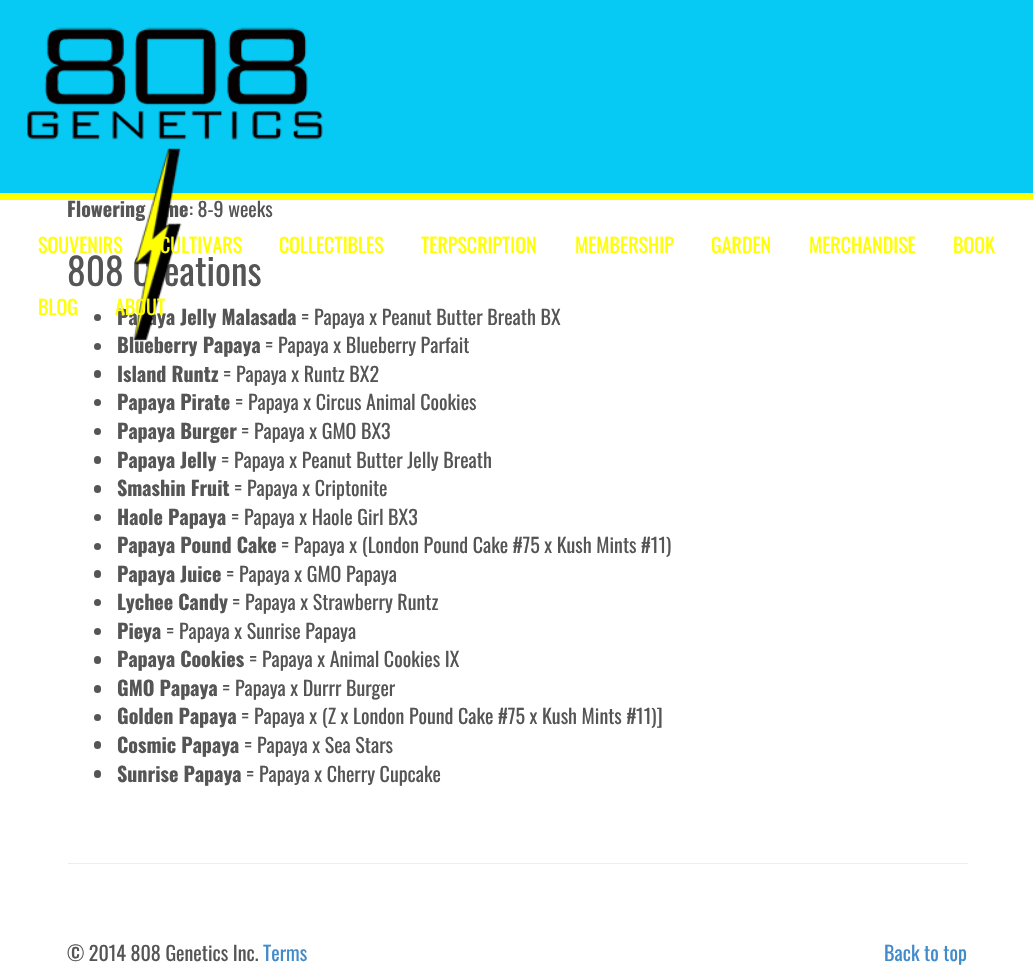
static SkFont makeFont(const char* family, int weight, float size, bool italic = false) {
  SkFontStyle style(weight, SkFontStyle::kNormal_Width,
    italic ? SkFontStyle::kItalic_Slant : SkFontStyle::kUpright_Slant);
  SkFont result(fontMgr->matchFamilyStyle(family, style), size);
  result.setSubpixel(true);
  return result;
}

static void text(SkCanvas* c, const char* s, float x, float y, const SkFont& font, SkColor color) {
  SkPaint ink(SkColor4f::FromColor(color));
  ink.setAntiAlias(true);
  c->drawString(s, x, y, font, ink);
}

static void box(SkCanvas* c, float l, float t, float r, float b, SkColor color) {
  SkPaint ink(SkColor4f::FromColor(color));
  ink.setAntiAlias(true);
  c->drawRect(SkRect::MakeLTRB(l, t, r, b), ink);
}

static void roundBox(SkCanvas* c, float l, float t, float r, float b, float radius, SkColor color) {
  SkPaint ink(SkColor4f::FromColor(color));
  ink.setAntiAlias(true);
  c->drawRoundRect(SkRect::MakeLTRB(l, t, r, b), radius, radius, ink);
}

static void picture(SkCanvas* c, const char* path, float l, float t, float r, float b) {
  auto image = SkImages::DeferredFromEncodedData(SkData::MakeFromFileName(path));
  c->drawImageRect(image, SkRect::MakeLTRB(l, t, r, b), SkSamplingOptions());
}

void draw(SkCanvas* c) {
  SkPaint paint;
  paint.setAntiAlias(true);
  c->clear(0xffffffff);
  SkFont face1 = makeFont("Oswald", 700, 20);
  text(c, "Flowering", 67, 217, face1, 0xff555555);
  text(c, "me", 164, 217, face1, 0xff555555);
  SkFont face2 = makeFont("Oswald", 400, 20);
  text(c, ": 8-9 weeks", 189, 217, face2, 0xff555555);
  SkFont face3 = makeFont("Oswald", 400, 37.5f);
  text(c, "808 Creations", 67, 286, face3, 0xff555555);
  paint.setColor(0xff555555);
  c->drawCircle(97.5f, 317.5f, 3.5f, paint);
  text(c, "Papaya Jelly Malasada", 117, 325, face1, 0xff555555);
  text(c, "= Papaya x Peanut Butter Breath BX", 301, 325, face2, 0xff555555);
  c->drawCircle(97.5f, 346.5f, 3.5f, paint);
  text(c, "Blueberry Papaya", 117, 353, face1, 0xff555555);
  text(c, "= Papaya x Blueberry Parfait", 265, 353, face2, 0xff555555);
  roundBox(c, 94, 370, 101, 378, 3.5f, 0xff555555);
  text(c, "Island Runtz", 117, 382, face1, 0xff555555);
  text(c, "= Papaya x Runtz BX2", 223, 382, face2, 0xff555555);
  c->drawCircle(97.5f, 402.5f, 3.5f, paint);
  text(c, "Papaya Pirate", 117, 410, face1, 0xff555555);
  text(c, "= Papaya x Circus Animal Cookies", 235, 410, face2, 0xff555555);
  c->drawCircle(97.5f, 431.5f, 3.5f, paint);
  text(c, "Papaya Burger", 117, 439, face1, 0xff555555);
  text(c, "= Papaya x GMO BX3", 241, 439, face2, 0xff555555);
  roundBox(c, 94, 456, 101, 464, 3.5f, 0xff555555);
  text(c, "Papaya Jelly", 117, 468, face1, 0xff555555);
  text(c, "= Papaya x Peanut Butter Jelly Breath", 221, 468, face2, 0xff555555);
  roundBox(c, 94, 485, 101, 493, 3.5f, 0xff555555);
  text(c, "Smashin Fruit", 117, 496, face1, 0xff555555);
  text(c, "= Papaya x Criptonite", 234, 496, face2, 0xff555555);
  c->drawCircle(97.5f, 517.5f, 3.5f, paint);
  text(c, "Haole Papaya", 117, 525, face1, 0xff555555);
  text(c, "= Papaya x Haole Girl BX3", 231, 525, face2, 0xff555555);
  c->drawCircle(97.5f, 546.5f, 3.5f, paint);
  text(c, "Papaya Pound Cake", 117, 553, face1, 0xff555555);
  text(c, "= Papaya x (London Pound Cake #75 x Kush Mints #11)", 281, 553, face2, 0xff555555);
  roundBox(c, 94, 570, 101, 578, 3.5f, 0xff555555);
  text(c, "Papaya Juice", 117, 582, face1, 0xff555555);
  text(c, "= Papaya x GMO Papaya", 226, 582, face2, 0xff555555);
  c->drawCircle(97.5f, 602.5f, 3.5f, paint);
  text(c, "Lychee Candy", 117, 610, face1, 0xff555555);
  text(c, "= Papaya x Strawberry Runtz", 232, 610, face2, 0xff555555);
  c->drawCircle(97.5f, 631.5f, 3.5f, paint);
  text(c, "Pieya", 117, 639, face1, 0xff555555);
  text(c, "= Papaya x Sunrise Papaya", 166, 639, face2, 0xff555555);
  roundBox(c, 94, 656, 101, 664, 3.5f, 0xff555555);
  text(c, "Papaya Cookies", 117, 667, face1, 0xff555555);
  text(c, "= Papaya x Animal Cookies IX", 249, 667, face2, 0xff555555);
  roundBox(c, 94, 685, 101, 693, 3.5f, 0xff555555);
  text(c, "GMO Papaya", 117, 696, face1, 0xff555555);
  text(c, "= Papaya x Durrr Burger", 222, 696, face2, 0xff555555);
  c->drawCircle(97.5f, 717.5f, 3.5f, paint);
  text(c, "Golden Papaya", 117, 724, face1, 0xff555555);
  text(c, "= Papaya x (Z x London Pound Cake #75 x Kush Mints #11)]", 241, 724, face2, 0xff555555);
  roundBox(c, 94, 741, 101, 749, 3.5f, 0xff555555);
  text(c, "Cosmic Papaya", 117, 753, face1, 0xff555555);
  text(c, "= Papaya x Sea Stars", 244, 753, face2, 0xff555555);
  roundBox(c, 94, 770, 101, 778, 3.5f, 0xff555555);
  text(c, "Sunrise Papaya", 117, 782, face1, 0xff555555);
  text(c, "= Papaya x Cherry Cupcake", 246, 782, face2, 0xff555555);
  box(c, 68, 863, 968, 864, 0xffeeeeee);
  text(c, "© 2014 808 Genetics Inc.", 67, 961, face2, 0xff555555);
  text(c, "Terms", 263, 961, face2, 0xff428bca);
  text(c, "Back to top", 884, 961, face2, 0xff428bca);
  box(c, 0, 0, 1033, 193, 0xff06caf4);
  box(c, 0, 193, 1033, 200, 0xffffff01);
  picture(c, "img_01.png", 27, 27, 323, 341);
  text(c, "SOUVENIRS", 38, 253, face2, 0xffffff01);
  text(c, "CULTIVARS", 160, 253, face2, 0xffffff01);
  text(c, "COLLECTIBLES", 279, 253, face2, 0xffffff01);
  text(c, "TERPSCRIPTION", 421, 253, face2, 0xffffff01);
  text(c, "MEMBERSHIP", 575, 253, face2, 0xffffff01);
  text(c, "GARDEN", 711, 253, face2, 0xffffff01);
  text(c, "MERCHANDISE", 809, 253, face2, 0xffffff01);
  text(c, "BOOK", 953, 253, face2, 0xffffff01);
  text(c, "BLOG", 38, 315, face2, 0xffffff01);
  text(c, "ABOUT", 115, 315, face2, 0xffffff01);
}
